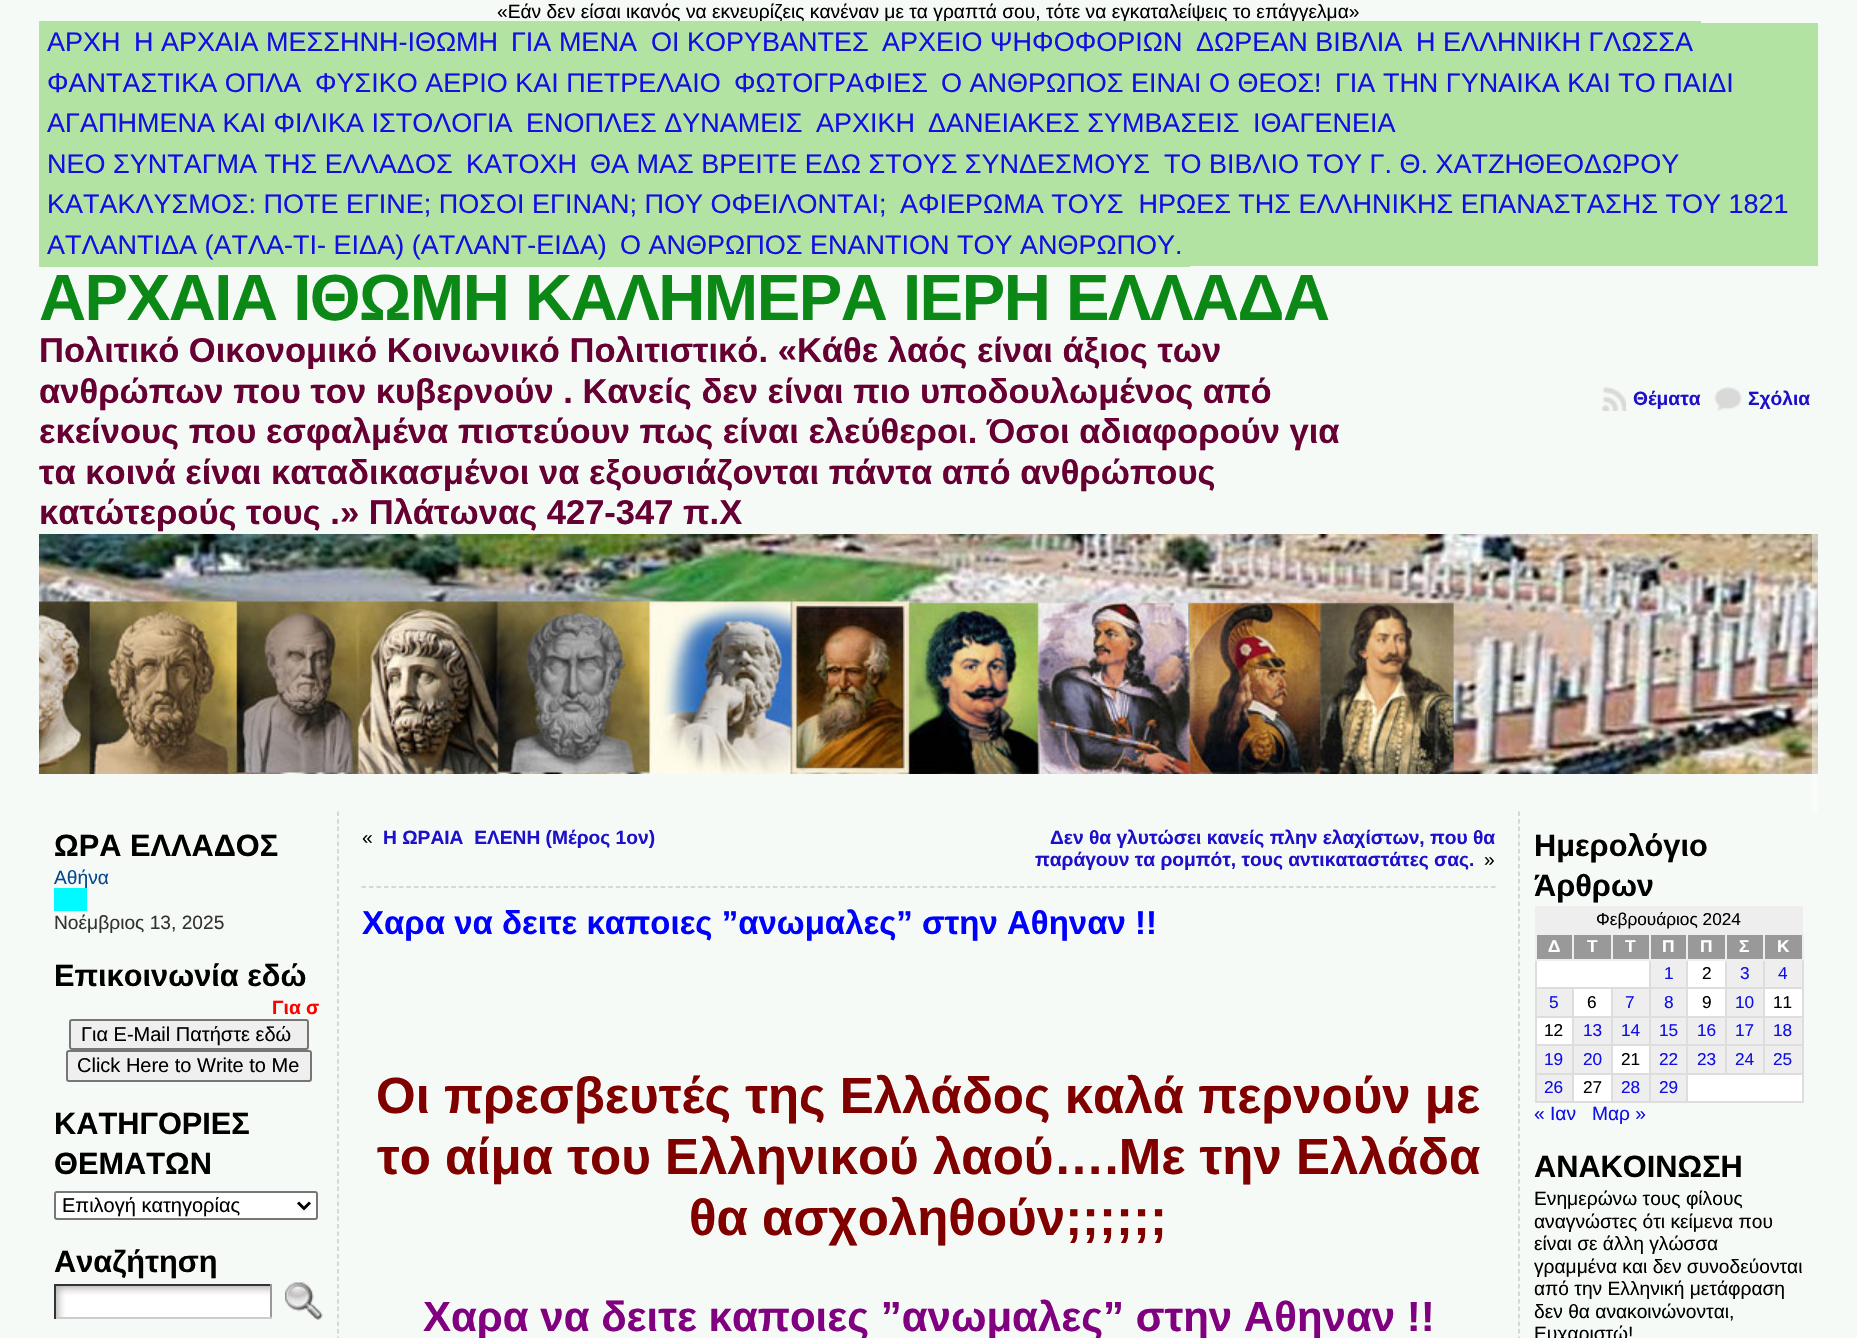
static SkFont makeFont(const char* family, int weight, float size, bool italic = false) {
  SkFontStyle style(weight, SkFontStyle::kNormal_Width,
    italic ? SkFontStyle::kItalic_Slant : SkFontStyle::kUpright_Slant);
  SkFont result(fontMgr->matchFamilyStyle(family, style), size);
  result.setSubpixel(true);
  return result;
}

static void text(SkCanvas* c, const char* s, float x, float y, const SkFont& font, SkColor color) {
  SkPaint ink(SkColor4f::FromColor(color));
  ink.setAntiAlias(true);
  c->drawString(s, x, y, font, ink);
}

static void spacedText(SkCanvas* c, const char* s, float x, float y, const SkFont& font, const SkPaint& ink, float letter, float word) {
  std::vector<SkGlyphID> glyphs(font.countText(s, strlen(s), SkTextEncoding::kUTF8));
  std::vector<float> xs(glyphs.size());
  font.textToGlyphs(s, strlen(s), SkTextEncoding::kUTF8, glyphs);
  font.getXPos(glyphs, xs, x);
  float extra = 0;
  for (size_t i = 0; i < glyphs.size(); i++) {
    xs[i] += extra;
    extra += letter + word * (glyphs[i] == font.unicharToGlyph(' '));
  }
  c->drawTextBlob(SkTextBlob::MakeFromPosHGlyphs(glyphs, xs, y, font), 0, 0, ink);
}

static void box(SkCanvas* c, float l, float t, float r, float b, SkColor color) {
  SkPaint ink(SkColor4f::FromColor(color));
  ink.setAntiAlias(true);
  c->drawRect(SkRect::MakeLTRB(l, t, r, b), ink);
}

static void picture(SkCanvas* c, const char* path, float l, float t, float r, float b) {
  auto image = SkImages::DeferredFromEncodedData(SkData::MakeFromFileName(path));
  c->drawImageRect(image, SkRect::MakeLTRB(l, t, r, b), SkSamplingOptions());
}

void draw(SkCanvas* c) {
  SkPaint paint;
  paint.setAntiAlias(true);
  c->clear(0xfff5faf6);
  SkFont face1 = makeFont("Liberation Sans", 400, 19.2f);
  text(c, "«Εάν δεν είσαι ικανός να εκνευρίζεις κανέναν με τα γραπτά σου, τότε να εγκαταλείψεις το επάγγελμα»", 497, 18, face1, 0xff000000);
  box(c, 39, 23, 1818, 266, 0xffb2e3a3);
  box(c, 39, 21, 1701, 23, 0xffb2e3a3);
  SkFont face2 = makeFont("Liberation Sans", 400, 27);
  text(c, "ΑΡΧΗ", 47, 51, face2, 0xff150ee3);
  text(c, "Η ΑΡΧΑΙΑ ΜΕΣΣΗΝΗ-ΙΘΩΜΗ", 134, 51, face2, 0xff150ee3);
  text(c, "ΓΙΑ ΜΕΝΑ", 511, 51, face2, 0xff150ee3);
  text(c, "ΟΙ ΚΟΡΥΒΑΝΤΕΣ", 651, 51, face2, 0xff150ee3);
  text(c, "ΑΡΧΕΙΟ ΨΗΦΟΦΟΡΙΩΝ", 882, 51, face2, 0xff150ee3);
  text(c, "ΔΩΡΕΑΝ ΒΙΒΛΙΑ", 1196, 51, face2, 0xff150ee3);
  text(c, "Η ΕΛΛΗΝΙΚΗ ΓΛΩΣΣΑ", 1416, 51, face2, 0xff150ee3);
  text(c, "ΦΑΝΤΑΣΤΙΚΑ ΟΠΛΑ", 47, 92, face2, 0xff150ee3);
  text(c, "ΦΥΣΙΚΟ ΑΕΡΙΟ ΚΑΙ ΠΕΤΡΕΛΑΙΟ", 315, 92, face2, 0xff150ee3);
  text(c, "ΦΩΤΟΓΡΑΦΙΕΣ", 734, 92, face2, 0xff150ee3);
  text(c, "Ο ΑΝΘΡΩΠΟΣ ΕΙΝΑΙ Ο ΘΕΟΣ!", 941, 92, face2, 0xff150ee3);
  text(c, "ΓΙΑ ΤΗΝ ΓΥΝΑΙΚΑ ΚΑΙ ΤΟ ΠΑΙΔΙ", 1335, 92, face2, 0xff150ee3);
  text(c, "ΑΓΑΠΗΜΕΝΑ ΚΑΙ ΦΙΛΙΚΑ ΙΣΤΟΛΟΓΙΑ", 47, 132, face2, 0xff150ee3);
  text(c, "ΕΝΟΠΛΕΣ ΔΥΝΑΜΕΙΣ", 526, 132, face2, 0xff150ee3);
  text(c, "ΑΡΧΙΚΗ", 816, 132, face2, 0xff150ee3);
  text(c, "ΔΑΝΕΙΑΚΕΣ ΣΥΜΒΑΣΕΙΣ", 928, 132, face2, 0xff150ee3);
  text(c, "ΙΘΑΓΕΝΕΙΑ", 1253, 132, face2, 0xff150ee3);
  text(c, "ΝΕΟ ΣΥΝΤΑΓΜΑ ΤΗΣ ΕΛΛΑΔΟΣ", 47, 173, face2, 0xff150ee3);
  text(c, "ΚΑΤΟΧΗ", 466, 173, face2, 0xff150ee3);
  text(c, "ΘΑ ΜΑΣ ΒΡΕΙΤΕ ΕΔΩ ΣΤΟΥΣ ΣΥΝΔΕΣΜΟΥΣ", 590, 173, face2, 0xff150ee3);
  text(c, "ΤΟ ΒΙΒΛΙΟ ΤΟΥ Γ. Θ. ΧΑΤΖΗΘΕΟΔΩΡΟΥ", 1164, 173, face2, 0xff150ee3);
  text(c, "ΚΑΤΑΚΛΥΣΜΟΣ: ΠΟΤΕ ΕΓΙΝΕ; ΠΟΣΟΙ ΕΓΙΝΑΝ; ΠΟΥ ΟΦΕΙΛΟΝΤΑΙ;", 47, 213, face2, 0xff150ee3);
  text(c, "ΑΦΙΕΡΩΜΑ ΤΟΥΣ  ΗΡΩΕΣ ΤΗΣ ΕΛΛΗΝΙΚΗΣ ΕΠΑΝΑΣΤΑΣΗΣ ΤΟΥ 1821", 900, 213, face2, 0xff150ee3);
  box(c, 39, 266, 1190, 267, 0xffb2e3a3);
  text(c, "ΑΤΛΑΝΤΙΔΑ (ΑΤΛΑ-ΤΙ- ΕΙΔΑ) (ΑΤΛΑΝΤ-ΕΙΔΑ)", 47, 254, face2, 0xff150ee3);
  text(c, "Ο ΑΝΘΡΩΠΟΣ ΕΝΑΝΤΙΟΝ ΤΟΥ ΑΝΘΡΩΠΟΥ.", 620, 254, face2, 0xff150ee3);
  SkFont face3 = makeFont("Liberation Sans", 700, 65.25f);
  paint.setColor(0xff0b8816);
  spacedText(c, "ΑΡΧΑΙΑ ΙΘΩΜΗ ΚΑΛΗΜΕΡΑ ΙΕΡΗ ΕΛΛΑΔΑ", 39, 320, face3, paint, -1.5f, 0);
  SkFont face4 = makeFont("Liberation Sans", 700, 34.55f);
  text(c, "Πολιτικό Οικονομικό Κοινωνικό Πολιτιστικό. «Κάθε λαός είναι άξιος των", 39, 362, face4, 0xff660033);
  text(c, "ανθρώπων που τον κυβερνούν . Κανείς δεν είναι πιο υποδουλωμένος από", 39, 403, face4, 0xff660033);
  text(c, "εκείνους που εσφαλμένα πιστεύουν πως είναι ελεύθεροι. Όσοι αδιαφορούν για", 39, 443, face4, 0xff660033);
  text(c, "τα κοινά είναι καταδικασμένοι να εξουσιάζονται πάντα από ανθρώπους", 39, 484, face4, 0xff660033);
  text(c, "κατώτερούς τους .» Πλάτωνας 427-347 π.Χ", 39, 524, face4, 0xff660033);
  picture(c, "img_01.png", 1602, 387, 1626, 411);
  SkFont face5 = makeFont("Liberation Sans", 700, 19.2f);
  text(c, "Θέματα", 1633, 405, face5, 0xff1e0fcb);
  picture(c, "img_02.png", 1714, 387, 1742, 411);
  text(c, "Σχόλια", 1748, 405, face5, 0xff1e0fcb);
  picture(c, "img_03.png", 39, 534, 1818, 774);
  box(c, 1812, 534, 1818, 812, 0x66ffffff);
  paint.setStyle(SkPaint::kStroke_Style);
  paint.setStrokeWidth(1.5f);
  paint.setColor(0xffcccccc);
  paint.setPathEffect(SkDashPathEffect::Make({{4.5f, 3}}, 0));
  c->drawPath(SkPathBuilder().moveTo(338, 811.5f).lineTo(338, 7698).detach(), paint);
  paint.setPathEffect(nullptr);
  SkFont face6 = makeFont("Liberation Sans", 700, 30.75f);
  text(c, "ΩΡΑ ΕΛΛΑΔΟΣ", 54, 856, face6, 0xff000000);
  text(c, "Αθήνα", 54, 884, face1, 0xff08488d);
  box(c, 54, 888, 87, 911, 0xff00faff);
  text(c, "Νοέμβριος 13, 2025", 54, 929, face1, 0xff333333);
  text(c, "Επικοινωνία εδώ", 54, 986, face6, 0xff000000);
  text(c, "Για σ", 272, 1014, face5, 0xffff0000);
  paint.setStyle(SkPaint::kFill_Style);
  paint.setColor(0xffefefef);
  c->drawRoundRect(SkRect::MakeLTRB(70, 1020, 308, 1049), 2, 2, paint);
  paint.setStyle(SkPaint::kStroke_Style);
  paint.setStrokeWidth(2);
  paint.setColor(0xff767676);
  c->drawRoundRect(SkRect::MakeLTRB(70, 1020, 308, 1049), 2, 2, paint);
  SkFont face7 = makeFont("Liberation Sans", 400, 20);
  text(c, "Για E-Mail Πατήστε εδώ", 81, 1041, face7, 0xff000000);
  paint.setStyle(SkPaint::kFill_Style);
  paint.setColor(0xffefefef);
  c->drawRoundRect(SkRect::MakeLTRB(67, 1051, 311, 1081), 2, 2, paint);
  paint.setStyle(SkPaint::kStroke_Style);
  paint.setColor(0xff767676);
  c->drawRoundRect(SkRect::MakeLTRB(67, 1051, 311, 1081), 2, 2, paint);
  text(c, "Click Here to Write to Me", 77, 1072, face7, 0xff000000);
  text(c, "ΚΑΤΗΓΟΡΙΕΣ", 54, 1134, face6, 0xff000000);
  text(c, "ΘΕΜΑΤΩΝ", 54, 1174, face6, 0xff000000);
  paint.setStyle(SkPaint::kFill_Style);
  paint.setColor(0xffffffff);
  c->drawRoundRect(SkRect::MakeLTRB(55, 1192, 317, 1219), 2, 2, paint);
  paint.setStyle(SkPaint::kStroke_Style);
  paint.setColor(0xff767676);
  c->drawRoundRect(SkRect::MakeLTRB(55, 1192, 317, 1219), 2, 2, paint);
  paint.setStrokeWidth(3);
  paint.setColor(0xff000000);
  c->drawPath(SkPathBuilder().moveTo(298, 1202.5f).lineTo(304, 1208.5f).lineTo(310, 1202.5f).detach(), paint);
  text(c, "Επιλογή κατηγορίας", 62, 1212, face7, 0xff000000);
  text(c, "Αναζήτηση", 54, 1272, face6, 0xff000000);
  picture(c, "img_04.png", 56, 1286, 270, 1317);
  box(c, 54, 1284, 272, 1286, 0xff333333);
  box(c, 270, 1284, 272, 1319, 0xff999999);
  box(c, 54, 1317, 272, 1319, 0xffcccccc);
  box(c, 54, 1284, 56, 1319, 0xff333333);
  picture(c, "img_05.png", 285, 1282, 323, 1320);
  paint.setStrokeWidth(1.5f);
  paint.setColor(0xffcccccc);
  paint.setPathEffect(SkDashPathEffect::Make({{4.5f, 2.98f}}, 0));
  c->drawPath(SkPathBuilder().moveTo(361.5f, 887).lineTo(1495.5f, 887).detach(), paint);
  paint.setPathEffect(nullptr);
  text(c, "«", 362, 844, face1, 0xff000000);
  text(c, "Η ΩΡΑΙΑ  ΕΛΕΝΗ (Μέρος 1ον)", 383, 844, face5, 0xff1e0fcb);
  text(c, "Δεν θα γλυτώσει κανείς πλην ελαχίστων, που θα", 1050, 844, face5, 0xff1e0fcb);
  text(c, "παράγουν τα ρομπότ, τους αντικαταστάτες σας.", 1035, 866, face5, 0xff1e0fcb);
  text(c, "»", 1484, 866, face1, 0xff000000);
  SkFont face8 = makeFont("Liberation Sans", 700, 33);
  text(c, "Χαρα να δειτε καποιες ”ανωμαλες” στην Αθηναν !!", 362, 934, face8, 0xff0000ff);
  SkFont face9 = makeFont("Liberation Sans", 700, 51);
  text(c, "Οι πρεσβευτές της Ελλάδος καλά περνούν με", 376, 1113, face9, 0xff800000);
  text(c, "το αίμα του Ελληνικού λαού….Με την Ελλάδα", 377, 1174, face9, 0xff800000);
  text(c, "θα ασχοληθούν;;;;;;", 689, 1235, face9, 0xff800000);
  SkFont face10 = makeFont("Liberation Sans", 700, 42);
  text(c, "Χαρα να δειτε καποιες ”ανωμαλες” στην Αθηναν !!", 423, 1331, face10, 0xff800080);
  paint.setPathEffect(SkDashPathEffect::Make({{4.5f, 3}}, 0));
  c->drawPath(SkPathBuilder().moveTo(1519, 811.5f).lineTo(1519, 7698).detach(), paint);
  paint.setPathEffect(nullptr);
  text(c, "Ημερολόγιο", 1534, 856, face6, 0xff000000);
  text(c, "Άρθρων", 1534, 896, face6, 0xff000000);
  box(c, 1537, 961, 1802, 1101, 0xffffffff);
  box(c, 1535, 906, 1803, 933, 0xffeeeeee);
  SkFont face11 = makeFont("Liberation Sans", 400, 17.25f);
  text(c, "Φεβρουάριος 2024", 1596, 925, face11, 0xff000000);
  box(c, 1537, 935, 1572, 959, 0xff999999);
  box(c, 1763, 933, 1803, 935, 0xffeeeeee);
  box(c, 1763, 987, 1803, 989, 0xffdddddd);
  box(c, 1763, 1016, 1803, 1018, 0xffdddddd);
  box(c, 1763, 1044, 1803, 1046, 0xffdddddd);
  box(c, 1686, 1073, 1803, 1075, 0xffdddddd);
  box(c, 1802, 1073, 1804, 1103, 0xffdddddd);
  box(c, 1802, 1044, 1804, 1074, 0xffdddddd);
  box(c, 1802, 1016, 1804, 1046, 0xffdddddd);
  box(c, 1802, 959, 1804, 1017, 0xffdddddd);
  box(c, 1802, 933, 1804, 960, 0xffeeeeee);
  box(c, 1763, 1044, 1765, 1074, 0xffdddddd);
  box(c, 1725, 1044, 1764, 1046, 0xffdddddd);
  box(c, 1763, 1016, 1765, 1046, 0xffdddddd);
  box(c, 1725, 1016, 1764, 1018, 0xffdddddd);
  box(c, 1763, 987, 1765, 1017, 0xffdddddd);
  box(c, 1725, 987, 1764, 989, 0xffdddddd);
  box(c, 1763, 959, 1765, 989, 0xffdddddd);
  box(c, 1763, 959, 1803, 961, 0xffeeeeee);
  box(c, 1763, 933, 1765, 960, 0xffeeeeee);
  box(c, 1725, 933, 1764, 935, 0xffeeeeee);
  box(c, 1725, 1044, 1727, 1074, 0xffdddddd);
  box(c, 1686, 1044, 1727, 1046, 0xffdddddd);
  box(c, 1725, 1016, 1727, 1046, 0xffdddddd);
  box(c, 1686, 1016, 1727, 1018, 0xffdddddd);
  box(c, 1725, 987, 1727, 1017, 0xffdddddd);
  box(c, 1686, 987, 1727, 989, 0xffdddddd);
  box(c, 1725, 959, 1727, 989, 0xffdddddd);
  box(c, 1725, 959, 1764, 961, 0xffeeeeee);
  box(c, 1725, 933, 1727, 960, 0xffeeeeee);
  box(c, 1686, 933, 1727, 935, 0xffeeeeee);
  box(c, 1686, 1101, 1803, 1103, 0xffdddddd);
  box(c, 1686, 1073, 1688, 1103, 0xffdddddd);
  box(c, 1649, 1073, 1688, 1075, 0xffdddddd);
  box(c, 1686, 1044, 1688, 1074, 0xffdddddd);
  box(c, 1649, 1044, 1688, 1046, 0xffdddddd);
  box(c, 1686, 1016, 1688, 1046, 0xffdddddd);
  box(c, 1649, 1016, 1688, 1018, 0xffdddddd);
  box(c, 1686, 987, 1688, 1017, 0xffdddddd);
  box(c, 1649, 987, 1688, 989, 0xffdddddd);
  box(c, 1686, 959, 1688, 989, 0xffdddddd);
  box(c, 1686, 959, 1727, 961, 0xffeeeeee);
  box(c, 1686, 933, 1688, 960, 0xffeeeeee);
  box(c, 1649, 933, 1688, 935, 0xffeeeeee);
  box(c, 1649, 1101, 1688, 1103, 0xffdddddd);
  box(c, 1649, 1073, 1651, 1103, 0xffdddddd);
  box(c, 1611, 1073, 1650, 1075, 0xffdddddd);
  box(c, 1649, 1044, 1651, 1074, 0xffdddddd);
  box(c, 1611, 1044, 1650, 1046, 0xffdddddd);
  box(c, 1649, 1016, 1651, 1046, 0xffdddddd);
  box(c, 1611, 1016, 1650, 1018, 0xffdddddd);
  box(c, 1649, 987, 1651, 1017, 0xffdddddd);
  box(c, 1611, 987, 1650, 989, 0xffdddddd);
  box(c, 1649, 959, 1651, 989, 0xffdddddd);
  box(c, 1649, 959, 1688, 961, 0xffeeeeee);
  box(c, 1649, 933, 1651, 960, 0xffeeeeee);
  box(c, 1611, 933, 1650, 935, 0xffeeeeee);
  box(c, 1611, 959, 1650, 961, 0xffeeeeee);
  box(c, 1611, 933, 1613, 960, 0xffeeeeee);
  box(c, 1572, 933, 1613, 935, 0xffeeeeee);
  box(c, 1572, 959, 1613, 961, 0xffeeeeee);
  box(c, 1572, 933, 1574, 960, 0xffeeeeee);
  box(c, 1535, 933, 1574, 935, 0xffeeeeee);
  box(c, 1611, 1101, 1650, 1103, 0xffdddddd);
  box(c, 1611, 1073, 1613, 1103, 0xffdddddd);
  box(c, 1572, 1073, 1613, 1075, 0xffdddddd);
  box(c, 1611, 1044, 1613, 1074, 0xffdddddd);
  box(c, 1572, 1044, 1613, 1046, 0xffdddddd);
  box(c, 1611, 1016, 1613, 1046, 0xffdddddd);
  box(c, 1572, 1016, 1613, 1018, 0xffdddddd);
  box(c, 1611, 987, 1613, 1017, 0xffdddddd);
  box(c, 1572, 987, 1613, 989, 0xffdddddd);
  box(c, 1572, 1101, 1613, 1103, 0xffdddddd);
  box(c, 1572, 1073, 1574, 1103, 0xffdddddd);
  box(c, 1535, 1073, 1574, 1075, 0xffdddddd);
  box(c, 1572, 1044, 1574, 1074, 0xffdddddd);
  box(c, 1535, 1044, 1574, 1046, 0xffdddddd);
  box(c, 1572, 1016, 1574, 1046, 0xffdddddd);
  box(c, 1535, 1016, 1574, 1018, 0xffdddddd);
  box(c, 1572, 987, 1574, 1017, 0xffdddddd);
  box(c, 1535, 987, 1574, 989, 0xffdddddd);
  box(c, 1535, 1101, 1574, 1103, 0xffdddddd);
  box(c, 1535, 1073, 1537, 1103, 0xffdddddd);
  box(c, 1535, 1044, 1537, 1074, 0xffdddddd);
  box(c, 1535, 1016, 1537, 1046, 0xffdddddd);
  box(c, 1535, 959, 1537, 1017, 0xffdddddd);
  box(c, 1535, 959, 1574, 961, 0xffeeeeee);
  box(c, 1535, 933, 1537, 960, 0xffeeeeee);
  SkFont face12 = makeFont("Liberation Sans", 700, 17.25f);
  text(c, "Δ", 1548, 952, face12, 0xffffffff);
  box(c, 1574, 935, 1611, 959, 0xff999999);
  text(c, "Τ", 1587, 952, face12, 0xffffffff);
  box(c, 1613, 935, 1649, 959, 0xff999999);
  text(c, "Τ", 1625, 952, face12, 0xffffffff);
  box(c, 1651, 935, 1686, 959, 0xff999999);
  text(c, "Π", 1662, 952, face12, 0xffffffff);
  box(c, 1688, 935, 1725, 959, 0xff999999);
  text(c, "Π", 1700, 952, face12, 0xffffffff);
  box(c, 1727, 935, 1763, 959, 0xff999999);
  text(c, "Σ", 1739, 952, face12, 0xffffffff);
  box(c, 1765, 935, 1802, 959, 0xff999999);
  text(c, "Κ", 1777, 952, face12, 0xffffffff);
  box(c, 1651, 961, 1686, 987, 0xffeeeeee);
  text(c, "1", 1664, 979, face11, 0xff0f0fe6);
  text(c, "2", 1702, 979, face11, 0xff000000);
  box(c, 1727, 961, 1763, 987, 0xffeeeeee);
  text(c, "3", 1740, 979, face11, 0xff0f0fe6);
  box(c, 1765, 961, 1802, 987, 0xffeeeeee);
  text(c, "4", 1778, 979, face11, 0xff0f0fe6);
  box(c, 1537, 989, 1572, 1016, 0xffeeeeee);
  text(c, "5", 1549, 1008, face11, 0xff0f0fe6);
  text(c, "6", 1587, 1008, face11, 0xff000000);
  box(c, 1613, 989, 1649, 1016, 0xffeeeeee);
  text(c, "7", 1625, 1008, face11, 0xff0f0fe6);
  box(c, 1651, 989, 1686, 1016, 0xffeeeeee);
  text(c, "8", 1664, 1008, face11, 0xff0f0fe6);
  text(c, "9", 1702, 1008, face11, 0xff000000);
  box(c, 1727, 989, 1763, 1016, 0xffeeeeee);
  text(c, "10", 1735, 1008, face11, 0xff0f0fe6);
  text(c, "11", 1773, 1008, face11, 0xff000000);
  text(c, "12", 1544, 1036, face11, 0xff000000);
  box(c, 1574, 1018, 1611, 1044, 0xffeeeeee);
  text(c, "13", 1583, 1036, face11, 0xff0f0fe6);
  box(c, 1613, 1018, 1649, 1044, 0xffeeeeee);
  text(c, "14", 1621, 1036, face11, 0xff0f0fe6);
  box(c, 1651, 1018, 1686, 1044, 0xffeeeeee);
  text(c, "15", 1659, 1036, face11, 0xff0f0fe6);
  box(c, 1688, 1018, 1725, 1044, 0xffeeeeee);
  text(c, "16", 1697, 1036, face11, 0xff0f0fe6);
  box(c, 1727, 1018, 1763, 1044, 0xffeeeeee);
  text(c, "17", 1735, 1036, face11, 0xff0f0fe6);
  box(c, 1765, 1018, 1802, 1044, 0xffeeeeee);
  text(c, "18", 1773, 1036, face11, 0xff0f0fe6);
  box(c, 1537, 1046, 1572, 1073, 0xffeeeeee);
  text(c, "19", 1544, 1065, face11, 0xff0f0fe6);
  box(c, 1574, 1046, 1611, 1073, 0xffeeeeee);
  text(c, "20", 1583, 1065, face11, 0xff0f0fe6);
  text(c, "21", 1621, 1065, face11, 0xff000000);
  box(c, 1651, 1046, 1686, 1073, 0xffeeeeee);
  text(c, "22", 1659, 1065, face11, 0xff0f0fe6);
  box(c, 1688, 1046, 1725, 1073, 0xffeeeeee);
  text(c, "23", 1697, 1065, face11, 0xff0f0fe6);
  box(c, 1727, 1046, 1763, 1073, 0xffeeeeee);
  text(c, "24", 1735, 1065, face11, 0xff0f0fe6);
  box(c, 1765, 1046, 1802, 1073, 0xffeeeeee);
  text(c, "25", 1773, 1065, face11, 0xff0f0fe6);
  box(c, 1537, 1075, 1572, 1101, 0xffeeeeee);
  text(c, "26", 1544, 1093, face11, 0xff0f0fe6);
  text(c, "27", 1583, 1093, face11, 0xff000000);
  box(c, 1613, 1075, 1649, 1101, 0xffeeeeee);
  text(c, "28", 1621, 1093, face11, 0xff0f0fe6);
  box(c, 1651, 1075, 1686, 1101, 0xffeeeeee);
  text(c, "29", 1659, 1093, face11, 0xff0f0fe6);
  text(c, "« Ιαν", 1534, 1120, face1, 0xff0f0fe6);
  text(c, "Μαρ »", 1592, 1120, face1, 0xff0f0fe6);
  text(c, "ΑΝΑΚΟΙΝΩΣΗ", 1534, 1177, face6, 0xff000000);
  text(c, "Ενημερώνω τους φίλους", 1534, 1205, face1, 0xff000000);
  text(c, "αναγνώστες ότι κείμενα που", 1534, 1228, face1, 0xff000000);
  text(c, "είναι σε άλλη γλώσσα", 1534, 1250, face1, 0xff000000);
  text(c, "γραμμένα και δεν συνοδεύονται", 1534, 1273, face1, 0xff000000);
  text(c, "από την Ελληνική μετάφραση", 1534, 1295, face1, 0xff000000);
  text(c, "δεν θα ανακοινώνονται,", 1534, 1318, face1, 0xff000000);
  text(c, "Ευχαριστώ!", 1534, 1340, face1, 0xff000000);
}
